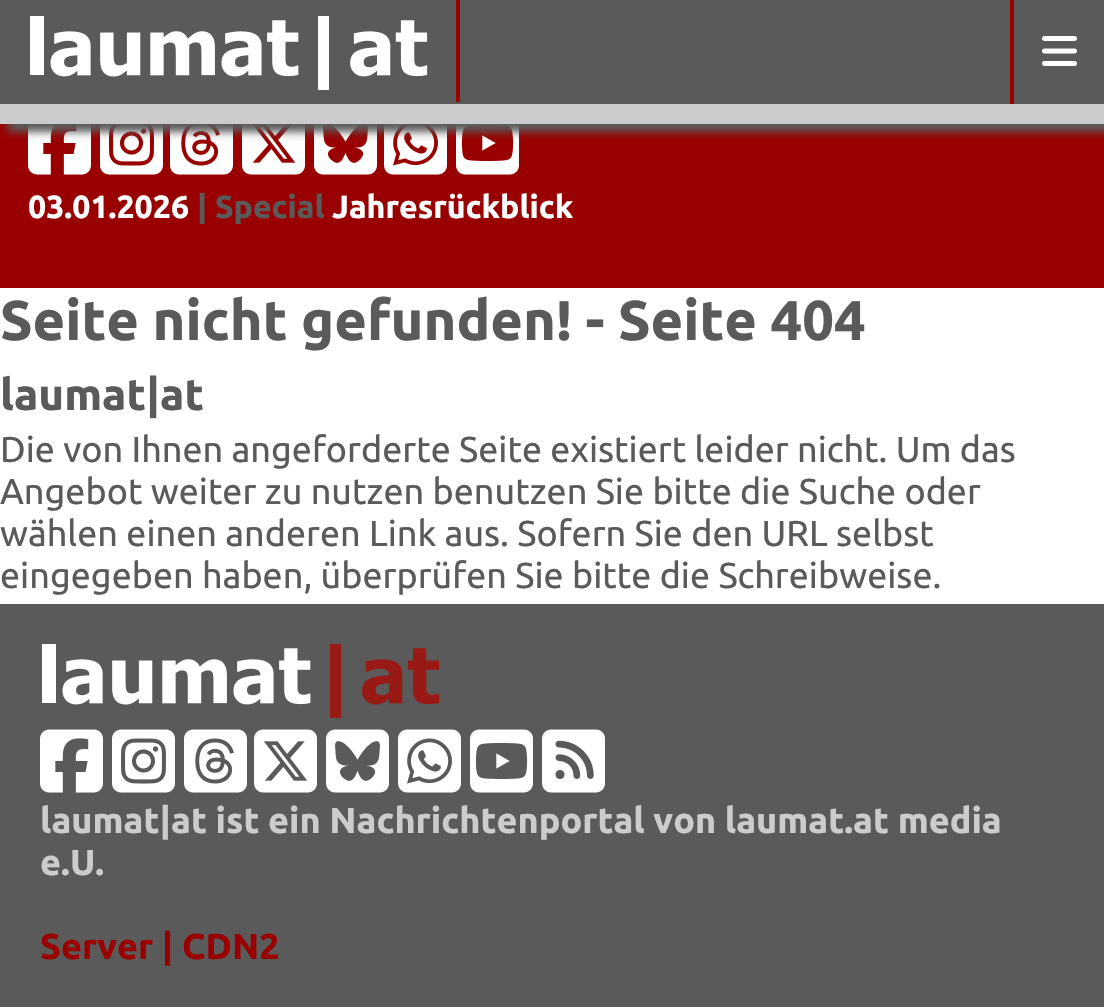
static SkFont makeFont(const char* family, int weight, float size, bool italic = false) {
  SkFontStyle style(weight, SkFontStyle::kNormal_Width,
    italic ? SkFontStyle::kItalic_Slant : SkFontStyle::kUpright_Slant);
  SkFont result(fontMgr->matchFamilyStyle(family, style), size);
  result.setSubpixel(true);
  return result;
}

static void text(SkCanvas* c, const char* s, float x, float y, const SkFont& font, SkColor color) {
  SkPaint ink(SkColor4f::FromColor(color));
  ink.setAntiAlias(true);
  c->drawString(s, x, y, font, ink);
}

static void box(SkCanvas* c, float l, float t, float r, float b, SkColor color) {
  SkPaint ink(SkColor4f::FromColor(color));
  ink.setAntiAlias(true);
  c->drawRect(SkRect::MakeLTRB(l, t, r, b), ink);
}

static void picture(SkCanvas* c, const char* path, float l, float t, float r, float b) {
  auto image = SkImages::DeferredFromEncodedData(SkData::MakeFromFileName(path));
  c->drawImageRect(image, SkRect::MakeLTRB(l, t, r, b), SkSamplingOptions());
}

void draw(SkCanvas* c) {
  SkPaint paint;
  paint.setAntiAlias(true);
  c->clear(0xffffffff);
  box(c, 0, 124, 1104, 288, 0xff990000);
  picture(c, "img_03.png", 28, 124, 91, 175);
  picture(c, "img_04.png", 100, 124, 163, 175);
  picture(c, "img_05.png", 170, 124, 233, 175);
  picture(c, "img_06.png", 242, 124, 305, 175);
  picture(c, "img_07.png", 314, 124, 377, 175);
  picture(c, "img_08.png", 384, 124, 447, 175);
  picture(c, "img_09.png", 456, 124, 519, 175);
  paint.setColor(0xff5a5a5a);
  paint.setMaskFilter(SkMaskFilter::MakeBlur(kNormal_SkBlurStyle, 4));
  c->drawRect(SkRect::MakeLTRB(8, 8, 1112, 132), paint);
  paint.setMaskFilter(nullptr);
  box(c, 0, 0, 1104, 104, 0xff5a5a5a);
  box(c, 456, 0, 460, 102, 0xff990000);
  picture(c, "img_01.png", 30, 16, 428, 90);
  box(c, 1010, 0, 1014, 104, 0xff990000);
  picture(c, "img_02.png", 1042, 36, 1077, 66);
  box(c, 0, 104, 1104, 124, 0xffcccccc);
  SkFont face1 = makeFont("Ubuntu", 700, 32);
  text(c, "03.01.2026", 28, 218, face1, 0xffffffff);
  text(c, "| Special", 197, 218, face1, 0xff5a5a5a);
  text(c, "Jahresrückblick", 332, 218, face1, 0xffffffff);
  SkFont face2 = makeFont("Ubuntu", 700, 56);
  text(c, "Seite nicht gefunden! - Seite 404", 0, 340, face2, 0xff5a5a5a);
  SkFont face3 = makeFont("Ubuntu", 700, 44);
  text(c, "laumat|at", 0, 410, face3, 0xff5a5a5a);
  SkFont face4 = makeFont("Ubuntu", 400, 36);
  text(c, "Die von Ihnen angeforderte Seite existiert leider nicht. Um das", 0, 462, face4, 0xff5a5a5a);
  text(c, "Angebot weiter zu nutzen benutzen Sie bitte die Suche oder", 0, 504, face4, 0xff5a5a5a);
  text(c, "wählen einen anderen Link aus. Sofern Sie den URL selbst", 0, 546, face4, 0xff5a5a5a);
  text(c, "eingegeben haben, überprüfen Sie bitte die Schreibweise.", 0, 588, face4, 0xff5a5a5a);
  box(c, 0, 604, 1104, 1007, 0xff5a5a5a);
  picture(c, "img_10.png", 42, 644, 440, 718);
  picture(c, "img_11.png", 40, 729, 103, 793);
  picture(c, "img_12.png", 112, 729, 175, 793);
  picture(c, "img_13.png", 184, 729, 247, 793);
  picture(c, "img_14.png", 254, 729, 317, 793);
  picture(c, "img_15.png", 326, 729, 389, 793);
  picture(c, "img_16.png", 398, 729, 461, 793);
  picture(c, "img_17.png", 470, 729, 533, 793);
  picture(c, "img_18.png", 542, 729, 605, 793);
  SkFont face5 = makeFont("Ubuntu", 700, 36);
  text(c, "laumat|at ist ein Nachrichtenportal von laumat.at media", 40, 833, face5, 0xffcccccc);
  text(c, "e.U.", 40, 875, face5, 0xffcccccc);
  text(c, "Server | CDN2", 40, 959, face5, 0xff990000);
}
